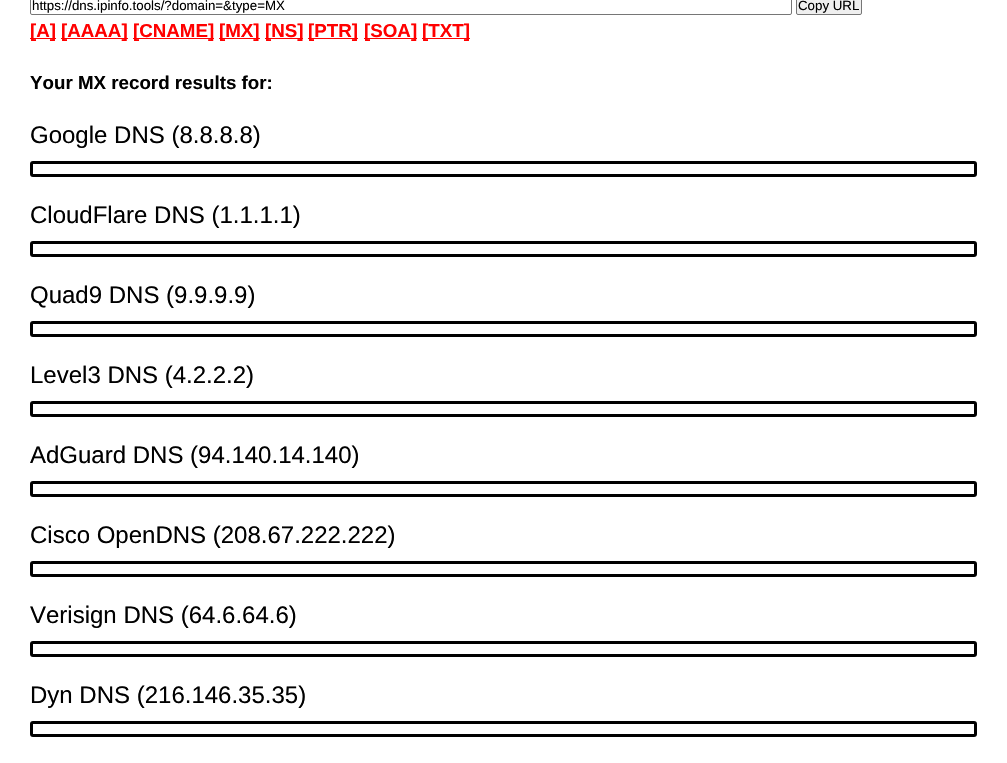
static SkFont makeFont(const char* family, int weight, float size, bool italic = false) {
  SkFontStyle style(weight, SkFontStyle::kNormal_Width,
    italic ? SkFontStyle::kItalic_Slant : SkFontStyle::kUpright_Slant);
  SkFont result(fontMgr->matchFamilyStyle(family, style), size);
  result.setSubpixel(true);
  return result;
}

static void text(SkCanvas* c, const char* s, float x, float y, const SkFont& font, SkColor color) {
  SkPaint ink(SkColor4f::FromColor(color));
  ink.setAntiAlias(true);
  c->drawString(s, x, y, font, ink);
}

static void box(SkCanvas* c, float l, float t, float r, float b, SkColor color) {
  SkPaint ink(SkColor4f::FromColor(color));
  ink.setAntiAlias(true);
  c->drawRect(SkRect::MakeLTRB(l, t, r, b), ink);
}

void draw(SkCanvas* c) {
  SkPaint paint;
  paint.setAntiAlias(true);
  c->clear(0xffffffff);
  paint.setStyle(SkPaint::kStroke_Style);
  paint.setStrokeWidth(1);
  paint.setColor(0xff767676);
  c->drawRoundRect(SkRect::MakeLTRB(30.5f, -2.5f, 791.5f, 14.5f), 1.5f, 1.5f, paint);
  SkFont face1 = makeFont("Liberation Sans", 400, 13.3f);
  text(c, "https://dns.ipinfo.tools/?domain=&type=MX", 32, 10, face1, 0xff000000);
  paint.setStyle(SkPaint::kFill_Style);
  paint.setColor(0xffefefef);
  c->drawRoundRect(SkRect::MakeLTRB(796.5f, -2.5f, 861.5f, 14.5f), 1.5f, 1.5f, paint);
  paint.setStyle(SkPaint::kStroke_Style);
  paint.setColor(0xff767676);
  c->drawRoundRect(SkRect::MakeLTRB(796.5f, -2.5f, 861.5f, 14.5f), 1.5f, 1.5f, paint);
  text(c, "Copy URL", 798, 10, face1, 0xff000000);
  box(c, 30, 38, 56, 39, 0xffff0000);
  SkFont face2 = makeFont("Liberation Sans", 700, 18.75f);
  text(c, "[A]", 30, 37, face2, 0xffff0000);
  box(c, 61, 38, 128, 39, 0xffff0000);
  text(c, "[AAAA]", 61, 37, face2, 0xffff0000);
  box(c, 133, 38, 214, 39, 0xffff0000);
  text(c, "[CNAME]", 133, 37, face2, 0xffff0000);
  box(c, 219, 38, 260, 39, 0xffff0000);
  text(c, "[MX]", 219, 37, face2, 0xffff0000);
  box(c, 265, 38, 303, 39, 0xffff0000);
  text(c, "[NS]", 265, 37, face2, 0xffff0000);
  box(c, 308, 38, 358, 39, 0xffff0000);
  text(c, "[PTR]", 308, 37, face2, 0xffff0000);
  box(c, 364, 38, 417, 39, 0xffff0000);
  text(c, "[SOA]", 364, 37, face2, 0xffff0000);
  box(c, 422, 38, 470, 39, 0xffff0000);
  text(c, "[TXT]", 422, 37, face2, 0xffff0000);
  text(c, "Your MX record results for:", 30, 89, face2, 0xff000000);
  SkFont face3 = makeFont("Liberation Sans", 400, 24);
  text(c, "Google DNS (8.8.8.8)", 30, 143, face3, 0xff000000);
  paint.setStrokeWidth(3);
  paint.setColor(0xff000000);
  c->drawRoundRect(SkRect::MakeLTRB(31.5f, 162.5f, 975.5f, 175.5f), 1.5f, 1.5f, paint);
  text(c, "CloudFlare DNS (1.1.1.1)", 30, 223, face3, 0xff000000);
  c->drawRoundRect(SkRect::MakeLTRB(31.5f, 242.5f, 975.5f, 255.5f), 1.5f, 1.5f, paint);
  text(c, "Quad9 DNS (9.9.9.9)", 30, 303, face3, 0xff000000);
  c->drawRoundRect(SkRect::MakeLTRB(31.5f, 322.5f, 975.5f, 335.5f), 1.5f, 1.5f, paint);
  text(c, "Level3 DNS (4.2.2.2)", 30, 383, face3, 0xff000000);
  c->drawRoundRect(SkRect::MakeLTRB(31.5f, 402.5f, 975.5f, 415.5f), 1.5f, 1.5f, paint);
  text(c, "AdGuard DNS (94.140.14.140)", 30, 463, face3, 0xff000000);
  c->drawRoundRect(SkRect::MakeLTRB(31.5f, 482.5f, 975.5f, 495.5f), 1.5f, 1.5f, paint);
  text(c, "Cisco OpenDNS (208.67.222.222)", 30, 543, face3, 0xff000000);
  c->drawRoundRect(SkRect::MakeLTRB(31.5f, 562.5f, 975.5f, 575.5f), 1.5f, 1.5f, paint);
  text(c, "Verisign DNS (64.6.64.6)", 30, 623, face3, 0xff000000);
  c->drawRoundRect(SkRect::MakeLTRB(31.5f, 642.5f, 975.5f, 655.5f), 1.5f, 1.5f, paint);
  text(c, "Dyn DNS (216.146.35.35)", 30, 703, face3, 0xff000000);
  c->drawRoundRect(SkRect::MakeLTRB(31.5f, 722.5f, 975.5f, 735.5f), 1.5f, 1.5f, paint);
}
